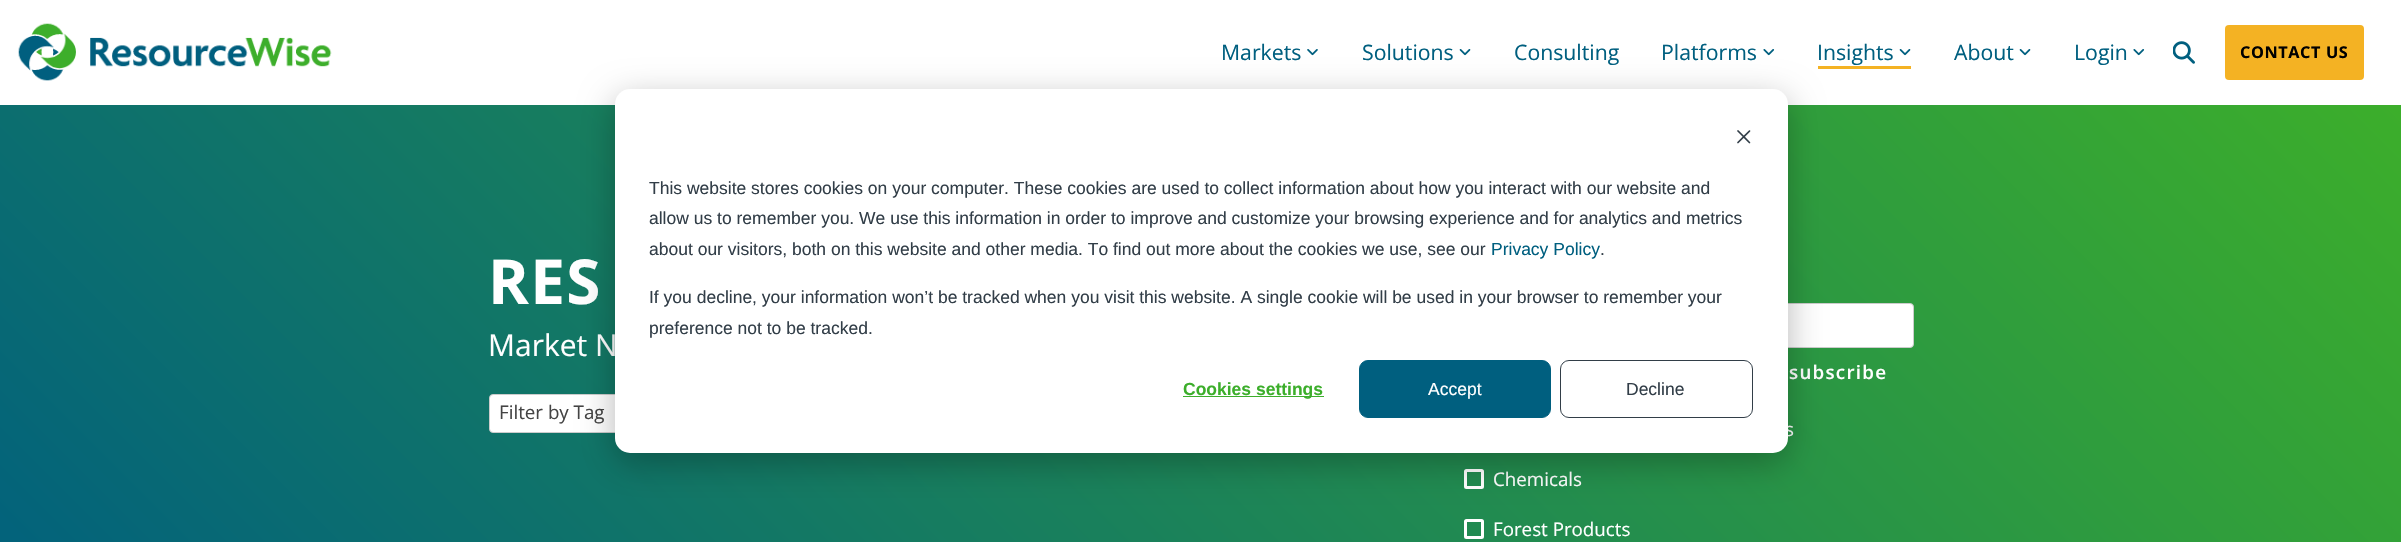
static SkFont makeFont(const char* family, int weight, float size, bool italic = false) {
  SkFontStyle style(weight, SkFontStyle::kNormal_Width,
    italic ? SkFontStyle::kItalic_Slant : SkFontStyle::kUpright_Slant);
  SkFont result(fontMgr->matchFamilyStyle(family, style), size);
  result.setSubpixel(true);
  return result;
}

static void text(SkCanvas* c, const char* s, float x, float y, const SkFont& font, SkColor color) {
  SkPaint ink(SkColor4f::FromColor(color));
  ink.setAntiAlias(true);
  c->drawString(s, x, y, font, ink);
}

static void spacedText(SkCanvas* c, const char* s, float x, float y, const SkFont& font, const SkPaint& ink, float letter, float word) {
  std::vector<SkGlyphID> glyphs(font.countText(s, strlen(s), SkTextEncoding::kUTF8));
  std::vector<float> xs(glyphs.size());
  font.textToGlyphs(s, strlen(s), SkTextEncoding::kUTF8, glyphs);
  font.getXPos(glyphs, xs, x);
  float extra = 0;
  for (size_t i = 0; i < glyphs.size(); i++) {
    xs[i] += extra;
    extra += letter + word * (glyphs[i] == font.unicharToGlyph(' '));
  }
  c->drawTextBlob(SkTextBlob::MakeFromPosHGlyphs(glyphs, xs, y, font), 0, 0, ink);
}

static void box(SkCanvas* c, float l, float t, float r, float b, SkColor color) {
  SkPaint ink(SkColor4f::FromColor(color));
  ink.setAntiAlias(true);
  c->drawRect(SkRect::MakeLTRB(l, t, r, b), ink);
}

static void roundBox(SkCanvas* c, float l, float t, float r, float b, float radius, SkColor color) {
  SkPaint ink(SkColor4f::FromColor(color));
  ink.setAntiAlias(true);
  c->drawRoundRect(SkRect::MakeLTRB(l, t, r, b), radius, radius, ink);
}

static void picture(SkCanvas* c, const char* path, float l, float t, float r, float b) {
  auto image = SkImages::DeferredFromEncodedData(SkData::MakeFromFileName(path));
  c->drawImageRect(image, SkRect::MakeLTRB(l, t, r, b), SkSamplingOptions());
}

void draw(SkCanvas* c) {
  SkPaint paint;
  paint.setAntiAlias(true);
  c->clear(0xffffffff);
  picture(c, "img_01.png", 18, 23, 332, 81);
  SkFont face1 = makeFont("Open Sans", 400, 21.25f);
  text(c, "Markets", 1221, 60, face1, 0xff005f7f);
  picture(c, "img_02.png", 1307, 49, 1318, 56);
  text(c, "Solutions", 1362, 60, face1, 0xff005f7f);
  picture(c, "img_03.png", 1459, 49, 1471, 56);
  text(c, "Consulting", 1514, 60, face1, 0xff005f7f);
  text(c, "Platforms", 1661, 60, face1, 0xff005f7f);
  picture(c, "img_04.png", 1763, 49, 1775, 56);
  text(c, "Insights", 1817, 60, face1, 0xff005f7f);
  picture(c, "img_03.png", 1899, 49, 1911, 56);
  box(c, 1818, 66, 1911, 69, 0xfff4b223);
  text(c, "About", 1954, 60, face1, 0xff005f7f);
  picture(c, "img_03.png", 2019, 49, 2031, 56);
  text(c, "Login", 2074, 60, face1, 0xff005f7f);
  picture(c, "img_04.png", 2133, 49, 2145, 56);
  picture(c, "img_05.png", 2173, 41, 2195, 64);
  roundBox(c, 2225, 25, 2364, 80, 4, 0xfff4b223);
  SkFont face2 = makeFont("Open Sans", 700, 16.25f);
  paint.setColor(0xff000000);
  spacedText(c, "CONTACT US", 2240, 58, face2, paint, 0.6f, 0);
  {
    const SkColor colors[] = {0xff005f7f, 0xff3cae2b};
    const float stops[] = {0, 1};
    const SkPoint ends[] = {{459, 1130}, {1943, -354}};
    paint.setShader(SkGradientShader::MakeLinear(ends, colors, stops, 2, SkTileMode::kClamp));
    paint.setAlpha(255);
  }
  c->drawRect(SkRect::MakeLTRB(0, 105, 2401, 542), paint);
  SkFont face3 = makeFont("Open Sans", 700, 62);
  paint.setShader(nullptr);
  paint.setColor(0xffffffff);
  spacedText(c, "RES", 488, 304, face3, paint, 1.25f, 0);
  SkFont face4 = makeFont("Open Sans", 400, 30);
  text(c, "Market N", 488, 356, face4, 0xffffffff);
  c->drawRoundRect(SkRect::MakeLTRB(489.5f, 394.5f, 835.5f, 432.5f), 3.5f, 3.5f, paint);
  paint.setStyle(SkPaint::kStroke_Style);
  paint.setStrokeWidth(1);
  paint.setColor(0xffcccccc);
  c->drawRoundRect(SkRect::MakeLTRB(489.5f, 394.5f, 835.5f, 432.5f), 3.5f, 3.5f, paint);
  SkFont face5 = makeFont("Open Sans", 400, 18.75f);
  text(c, "Filter by Tag", 499, 419, face5, 0xff444444);
  paint.setStyle(SkPaint::kFill_Style);
  paint.setColor(0xffffffff);
  c->drawRoundRect(SkRect::MakeLTRB(1464.5f, 303.5f, 1913.5f, 347.5f), 3.5f, 3.5f, paint);
  paint.setStyle(SkPaint::kStroke_Style);
  paint.setColor(0xffcccccc);
  c->drawRoundRect(SkRect::MakeLTRB(1464.5f, 303.5f, 1913.5f, 347.5f), 3.5f, 3.5f, paint);
  SkFont face6 = makeFont("Open Sans", 600, 18.75f);
  paint.setStyle(SkPaint::kFill_Style);
  paint.setColor(0xffffffff);
  spacedText(c, "subscribe", 1789, 379, face6, paint, 1.25f, 0);
  text(c, "s", 1785, 436, face5, 0xffffffff);
  paint.setStyle(SkPaint::kStroke_Style);
  paint.setStrokeWidth(3);
  c->drawRoundRect(SkRect::MakeLTRB(1465.5f, 470.5f, 1482.5f, 487.5f), 1, 1, paint);
  text(c, "Chemicals", 1493, 486, face5, 0xffffffff);
  c->drawRoundRect(SkRect::MakeLTRB(1465.5f, 520.5f, 1482.5f, 537.5f), 1, 1, paint);
  text(c, "Forest Products", 1493, 536, face5, 0xffffffff);
  paint.setStyle(SkPaint::kFill_Style);
  paint.setColor(0x47000000);
  paint.setMaskFilter(SkMaskFilter::MakeBlur(kNormal_SkBlurStyle, 17.5f));
  c->drawRoundRect(SkRect::MakeLTRB(615, 99, 1788, 463), 15, 15, paint);
  paint.setMaskFilter(nullptr);
  roundBox(c, 615, 89, 1788, 453, 15, 0xffffffff);
  picture(c, "img_06.png", 1737, 130, 1751, 144);
  SkFont face7 = makeFont("Liberation Sans", 400, 17.5f);
  text(c, "This website stores cookies on your computer. These cookies are used to collect information about how you interact with our website and", 649, 194, face7, 0xff323e48);
  text(c, "allow us to remember you. We use this information in order to improve and customize your browsing experience and for analytics and metrics", 649, 224, face7, 0xff323e48);
  text(c, "about our visitors, both on this website and other media. To find out more about the cookies we use, see our", 649, 255, face7, 0xff323e48);
  text(c, "Privacy Policy", 1491, 255, face7, 0xff005f7f);
  text(c, ".", 1600, 255, face7, 0xff323e48);
  text(c, "If you decline, your information won’t be tracked when you visit this website. A single cookie will be used in your browser to remember your", 649, 303, face7, 0xff323e48);
  text(c, "preference not to be tracked.", 649, 334, face7, 0xff323e48);
  box(c, 1183, 396, 1324, 397, 0xff3cae2b);
  SkFont face8 = makeFont("Liberation Sans", 700, 17.5f);
  text(c, "Cookies settings", 1183, 395, face8, 0xff3cae2b);
  paint.setColor(0xff005f7f);
  c->drawRoundRect(SkRect::MakeLTRB(1359.5f, 360.5f, 1550.5f, 417.5f), 8.5f, 8.5f, paint);
  paint.setStyle(SkPaint::kStroke_Style);
  paint.setStrokeWidth(1);
  c->drawRoundRect(SkRect::MakeLTRB(1359.5f, 360.5f, 1550.5f, 417.5f), 8.5f, 8.5f, paint);
  text(c, "Accept", 1428, 395, face7, 0xffffffff);
  paint.setColor(0xff323e48);
  c->drawRoundRect(SkRect::MakeLTRB(1560.5f, 360.5f, 1752.5f, 417.5f), 8.5f, 8.5f, paint);
  text(c, "Decline", 1626, 395, face7, 0xff323e48);
}
